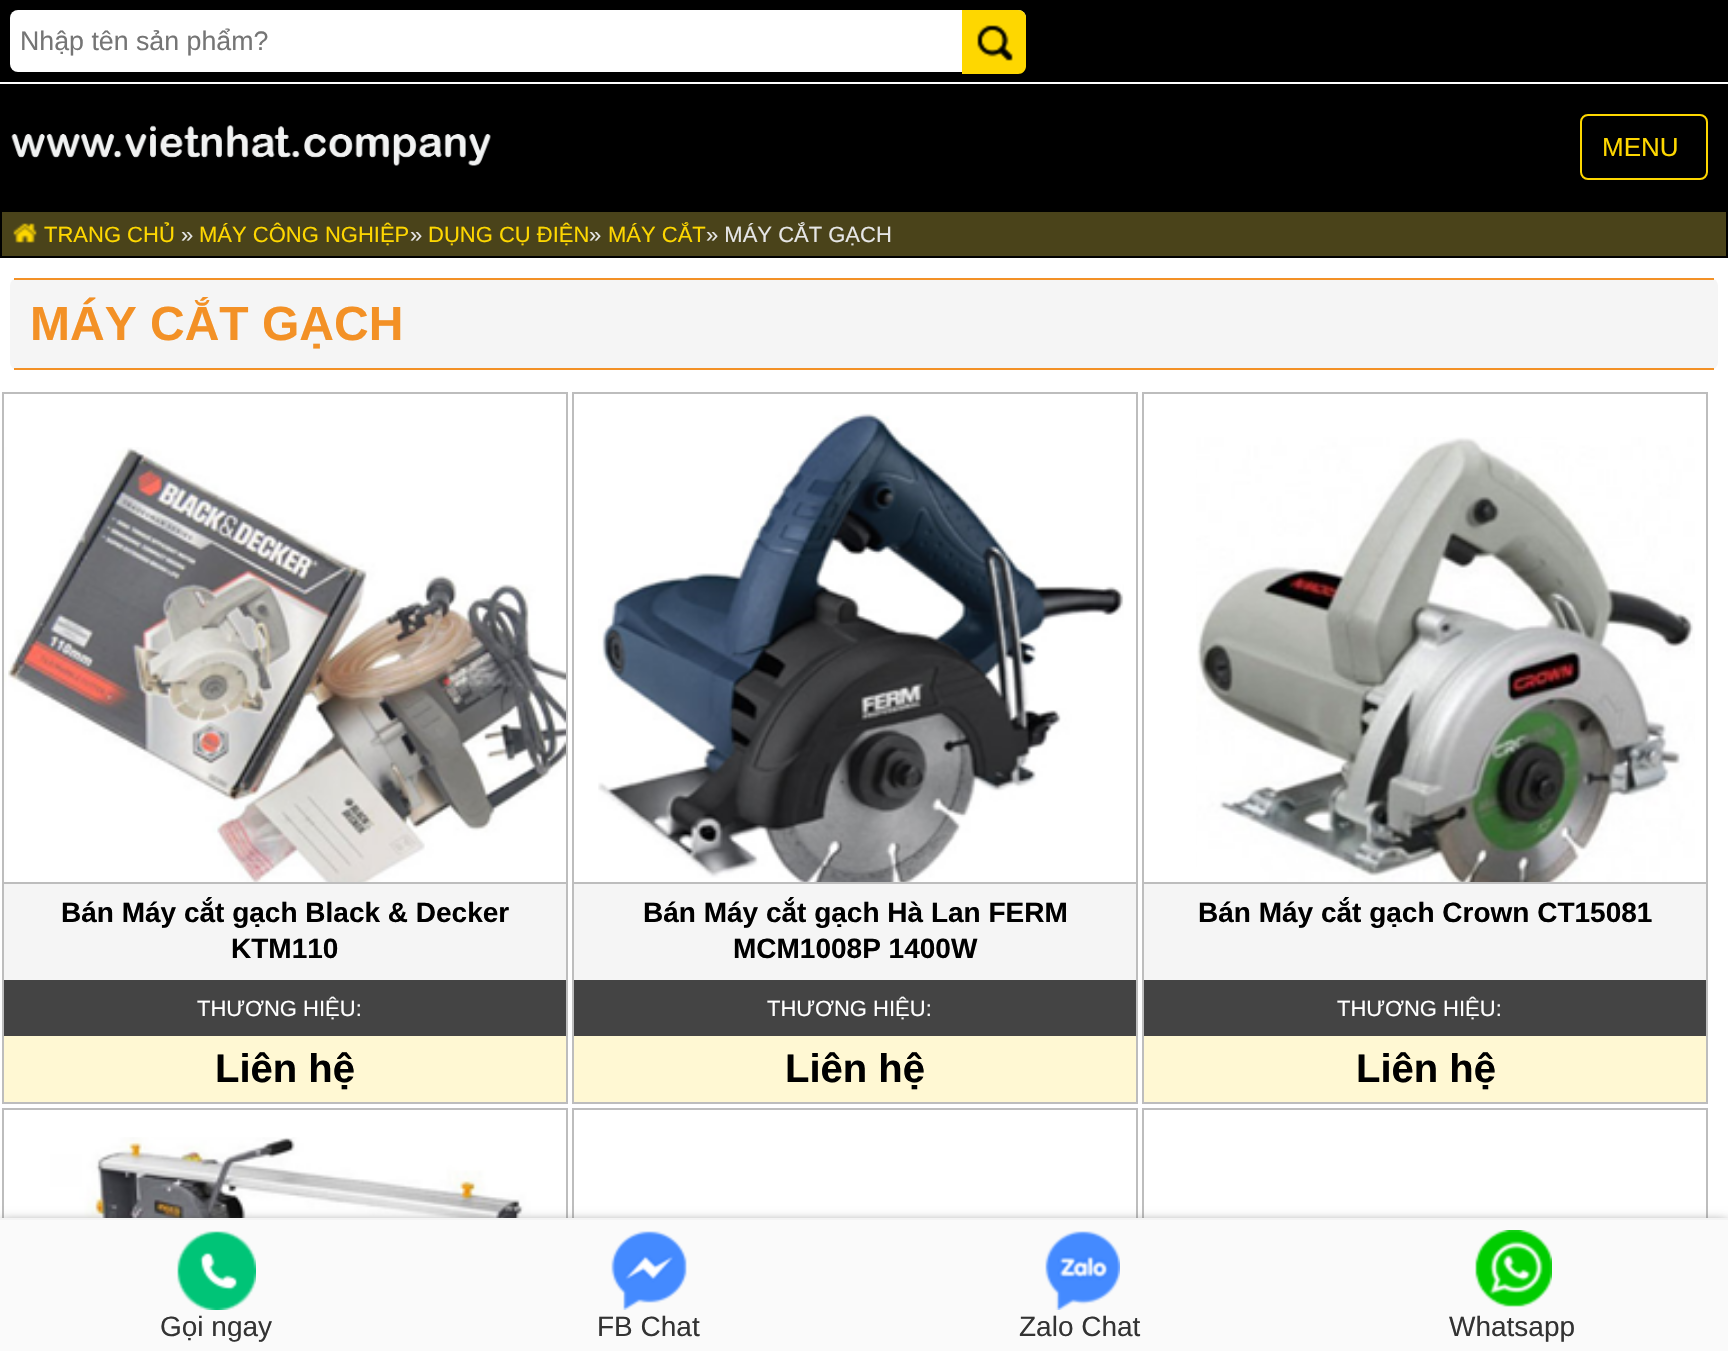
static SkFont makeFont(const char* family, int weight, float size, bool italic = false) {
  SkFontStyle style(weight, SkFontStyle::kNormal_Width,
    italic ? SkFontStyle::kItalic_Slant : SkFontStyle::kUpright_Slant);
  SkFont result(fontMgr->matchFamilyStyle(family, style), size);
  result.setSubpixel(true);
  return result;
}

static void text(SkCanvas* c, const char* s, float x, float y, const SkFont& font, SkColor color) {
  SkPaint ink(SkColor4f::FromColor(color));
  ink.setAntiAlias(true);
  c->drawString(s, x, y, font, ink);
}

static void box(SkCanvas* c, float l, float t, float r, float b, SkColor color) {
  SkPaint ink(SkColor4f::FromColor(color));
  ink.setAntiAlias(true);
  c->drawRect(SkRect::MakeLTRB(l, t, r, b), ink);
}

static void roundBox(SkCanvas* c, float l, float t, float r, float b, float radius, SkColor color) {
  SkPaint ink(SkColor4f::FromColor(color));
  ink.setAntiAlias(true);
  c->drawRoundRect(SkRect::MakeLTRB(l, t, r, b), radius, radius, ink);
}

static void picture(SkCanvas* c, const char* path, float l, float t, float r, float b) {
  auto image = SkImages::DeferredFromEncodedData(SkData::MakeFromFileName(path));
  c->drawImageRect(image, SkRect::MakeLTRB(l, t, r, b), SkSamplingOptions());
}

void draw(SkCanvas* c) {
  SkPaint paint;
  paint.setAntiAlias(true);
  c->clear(0xffffffff);
  box(c, 0, 0, 1728, 82, 0xff000000);
  roundBox(c, 10, 10, 1026, 72, 8, 0xffffffff);
  SkFont face1 = makeFont("Liberation Sans", 400, 26.75f);
  text(c, "Nhập tên sản phẩm?", 20, 50, face1, 0xff757575);
  paint.setColor(0xfffed700);
  c->drawPath(SkPathBuilder().moveTo(962, 10).lineTo(1018, 10).cubicTo(1022.5f, 10, 1026, 13.5f, 1026, 18).lineTo(1026, 66).cubicTo(1026, 70.5f, 1022.5f, 74, 1018, 74).lineTo(962, 74).close().detach(), paint);
  picture(c, "img_01.png", 977, 25, 1013, 61);
  box(c, 0, 84, 1728, 210, 0xff000000);
  picture(c, "img_02.png", 11, 125, 491, 166);
  paint.setStyle(SkPaint::kStroke_Style);
  paint.setStrokeWidth(2);
  c->drawRoundRect(SkRect::MakeLTRB(1581, 115, 1707, 179), 7, 7, paint);
  SkFont face2 = makeFont("Liberation Sans", 400, 26);
  text(c, "MENU", 1602, 156, face2, 0xfffed700);
  paint.setStyle(SkPaint::kFill_Style);
  paint.setColor(0xff4a431a);
  c->drawRect(SkRect::MakeLTRB(1, 211, 1727, 257), paint);
  paint.setStyle(SkPaint::kStroke_Style);
  paint.setColor(0xff000000);
  c->drawRect(SkRect::MakeLTRB(1, 211, 1727, 257), paint);
  picture(c, "img_03.png", 13, 223, 37, 243);
  SkFont face3 = makeFont("Liberation Sans", 400, 22);
  text(c, "TRANG CHỦ", 44, 242, face3, 0xfffed700);
  text(c, "»", 181, 242, face3, 0xffe6e6e6);
  text(c, "MÁY CÔNG NGHIỆP", 199, 242, face3, 0xfffed700);
  text(c, "»", 410, 242, face3, 0xffe6e6e6);
  text(c, "DỤNG CỤ ĐIỆN", 428, 242, face3, 0xfffed700);
  text(c, "»", 589, 242, face3, 0xffe6e6e6);
  text(c, "MÁY CẮT", 608, 242, face3, 0xfffed700);
  text(c, "» MÁY CẮT GẠCH", 706, 242, face3, 0xffe6e6e6);
  roundBox(c, 10, 278, 1718, 370, 8, 0xfff5f5f5);
  box(c, 14, 278, 1714, 280, 0xfff39126);
  box(c, 14, 368, 1714, 370, 0xfff39126);
  SkFont face4 = makeFont("Liberation Sans", 700, 48);
  text(c, "MÁY CẮT GẠCH", 30, 340, face4, 0xfff39126);
  paint.setColor(0xffbdbdbd);
  c->drawRect(SkRect::MakeLTRB(3, 393, 567, 1103), paint);
  picture(c, "img_04.png", 4, 447, 566, 882);
  box(c, 4, 884, 566, 980, 0xfff5f5f5);
  box(c, 4, 882, 566, 884, 0xffbdbdbd);
  SkFont face5 = makeFont("Liberation Sans", 700, 28);
  text(c, "Bán Máy cắt gạch Black & Decker", 61, 922, face5, 0xff000000);
  text(c, "KTM110", 231, 958, face5, 0xff000000);
  box(c, 4, 980, 566, 1036, 0xff444444);
  text(c, "THƯƠNG HIỆU:", 197, 1016, face3, 0xffffffff);
  box(c, 4, 1036, 566, 1102, 0xfffff8d3);
  SkFont face6 = makeFont("Liberation Sans", 700, 40);
  text(c, "Liên hệ", 215, 1082, face6, 0xff000000);
  c->drawRect(SkRect::MakeLTRB(573, 393, 1137, 1103), paint);
  picture(c, "img_05.png", 598, 410, 1124, 882);
  box(c, 574, 884, 1136, 980, 0xfff5f5f5);
  box(c, 574, 882, 1136, 884, 0xffbdbdbd);
  text(c, "Bán Máy cắt gạch Hà Lan FERM", 643, 922, face5, 0xff000000);
  text(c, "MCM1008P 1400W", 733, 958, face5, 0xff000000);
  box(c, 574, 980, 1136, 1036, 0xff444444);
  text(c, "THƯƠNG HIỆU:", 767, 1016, face3, 0xffffffff);
  box(c, 574, 1036, 1136, 1102, 0xfffff8d3);
  text(c, "Liên hệ", 785, 1082, face6, 0xff000000);
  c->drawRect(SkRect::MakeLTRB(1143, 393, 1707, 1103), paint);
  picture(c, "img_06.png", 1196, 437, 1695, 882);
  box(c, 1144, 884, 1706, 980, 0xfff5f5f5);
  box(c, 1144, 882, 1706, 884, 0xffbdbdbd);
  text(c, "Bán Máy cắt gạch Crown CT15081", 1198, 922, face5, 0xff000000);
  box(c, 1144, 980, 1706, 1036, 0xff444444);
  text(c, "THƯƠNG HIỆU:", 1337, 1016, face3, 0xffffffff);
  box(c, 1144, 1036, 1706, 1102, 0xfffff8d3);
  text(c, "Liên hệ", 1356, 1082, face6, 0xff000000);
  c->drawRect(SkRect::MakeLTRB(3, 1109, 567, 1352), paint);
  picture(c, "img_07.png", 34, 1137, 542, 1218);
  c->drawRect(SkRect::MakeLTRB(573, 1109, 1137, 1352), paint);
  c->drawRect(SkRect::MakeLTRB(1143, 1109, 1707, 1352), paint);
  paint.setStyle(SkPaint::kFill_Style);
  paint.setColor(0xff333333);
  paint.setMaskFilter(SkMaskFilter::MakeBlur(kNormal_SkBlurStyle, 6));
  c->drawRect(SkRect::MakeLTRB(0, 1224, 1728, 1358), paint);
  paint.setMaskFilter(nullptr);
  box(c, 0, 1220, 1728, 1351, 0xfffafafa);
  box(c, 0, 1218, 1728, 1220, 0xfff4f4f4);
  picture(c, "img_08.png", 177, 1231, 256, 1310);
  SkFont face7 = makeFont("Liberation Sans", 400, 28);
  text(c, "Gọi ngay", 160, 1336, face7, 0xff333333);
  picture(c, "img_09.png", 611, 1231, 687, 1310);
  text(c, "FB Chat", 597, 1336, face7, 0xff333333);
  picture(c, "img_10.png", 1045, 1231, 1120, 1310);
  text(c, "Zalo Chat", 1019, 1336, face7, 0xff333333);
  picture(c, "img_11.png", 1475, 1230, 1552, 1307);
  text(c, "Whatsapp", 1449, 1336, face7, 0xff333333);
}
